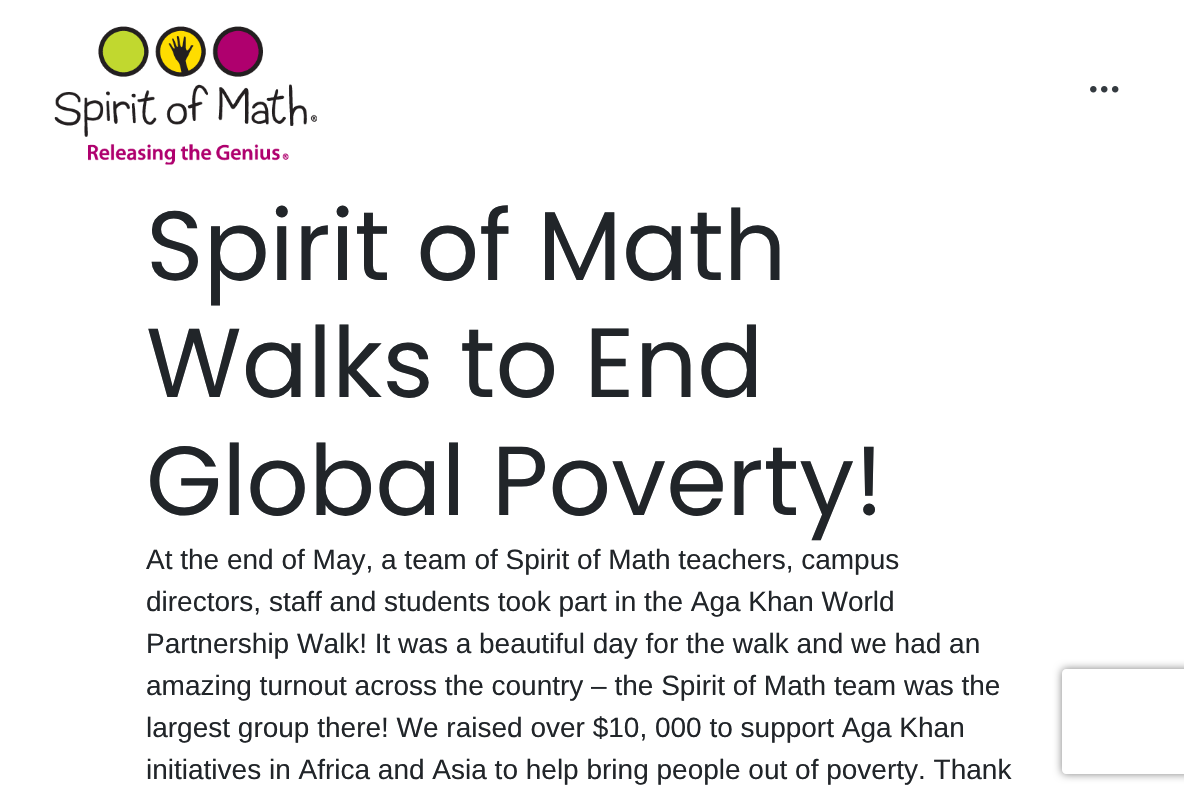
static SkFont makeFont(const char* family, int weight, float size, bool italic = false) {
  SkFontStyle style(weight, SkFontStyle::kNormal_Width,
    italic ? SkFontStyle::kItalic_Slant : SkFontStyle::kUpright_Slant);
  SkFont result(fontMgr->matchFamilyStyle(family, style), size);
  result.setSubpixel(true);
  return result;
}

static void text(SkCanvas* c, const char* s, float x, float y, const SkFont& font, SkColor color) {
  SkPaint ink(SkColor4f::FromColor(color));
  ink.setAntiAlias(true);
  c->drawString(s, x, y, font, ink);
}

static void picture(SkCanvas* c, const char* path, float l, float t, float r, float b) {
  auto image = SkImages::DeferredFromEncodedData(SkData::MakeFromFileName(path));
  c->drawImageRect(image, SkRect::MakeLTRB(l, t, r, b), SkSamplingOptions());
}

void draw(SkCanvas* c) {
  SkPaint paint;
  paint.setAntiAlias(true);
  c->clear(0xffffffff);
  picture(c, "img_01.png", 54, 26, 317, 165);
  picture(c, "img_02.png", 1090, 86, 1119, 93);
  SkFont face1 = makeFont("Poppins", 400, 98);
  text(c, "Spirit of Math", 146, 280, face1, 0xff212529);
  text(c, "Walks to End", 146, 397, face1, 0xff212529);
  text(c, "Global Poverty!", 146, 515, face1, 0xff212529);
  SkFont face2 = makeFont("Liberation Sans", 400, 28);
  text(c, "At the end of May, a team of Spirit of Math teachers, campus", 146, 569, face2, 0xff212529);
  text(c, "directors, staff and students took part in the Aga Khan World", 146, 611, face2, 0xff212529);
  text(c, "Partnership Walk! It was a beautiful day for the walk and we had an", 146, 653, face2, 0xff212529);
  text(c, "amazing turnout across the country – the Spirit of Math team was the", 146, 695, face2, 0xff212529);
  text(c, "largest group there! We raised over $10, 000 to support Aga Khan", 146, 737, face2, 0xff212529);
  text(c, "initiatives in Africa and Asia to help bring people out of poverty. Thank", 146, 779, face2, 0xff212529);
  c->save();
  c->clipPath(SkPathBuilder(SkPathFillType::kEvenOdd).moveTo(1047, 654).lineTo(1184, 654).lineTo(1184, 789).lineTo(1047, 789).close().moveTo(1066, 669).lineTo(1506, 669).cubicTo(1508, 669, 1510, 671, 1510, 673).lineTo(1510, 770).cubicTo(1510, 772, 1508, 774, 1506, 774).lineTo(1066, 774).cubicTo(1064, 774, 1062, 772, 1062, 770).lineTo(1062, 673).cubicTo(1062, 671, 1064, 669, 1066, 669).close().detach(), true);
  paint.setColor(0xff808080);
  paint.setMaskFilter(SkMaskFilter::MakeBlur(kNormal_SkBlurStyle, 4.5f));
  c->drawRoundRect(SkRect::MakeLTRB(1062, 669, 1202, 774), 4, 4, paint);
  paint.setMaskFilter(nullptr);
  c->restore();
}
